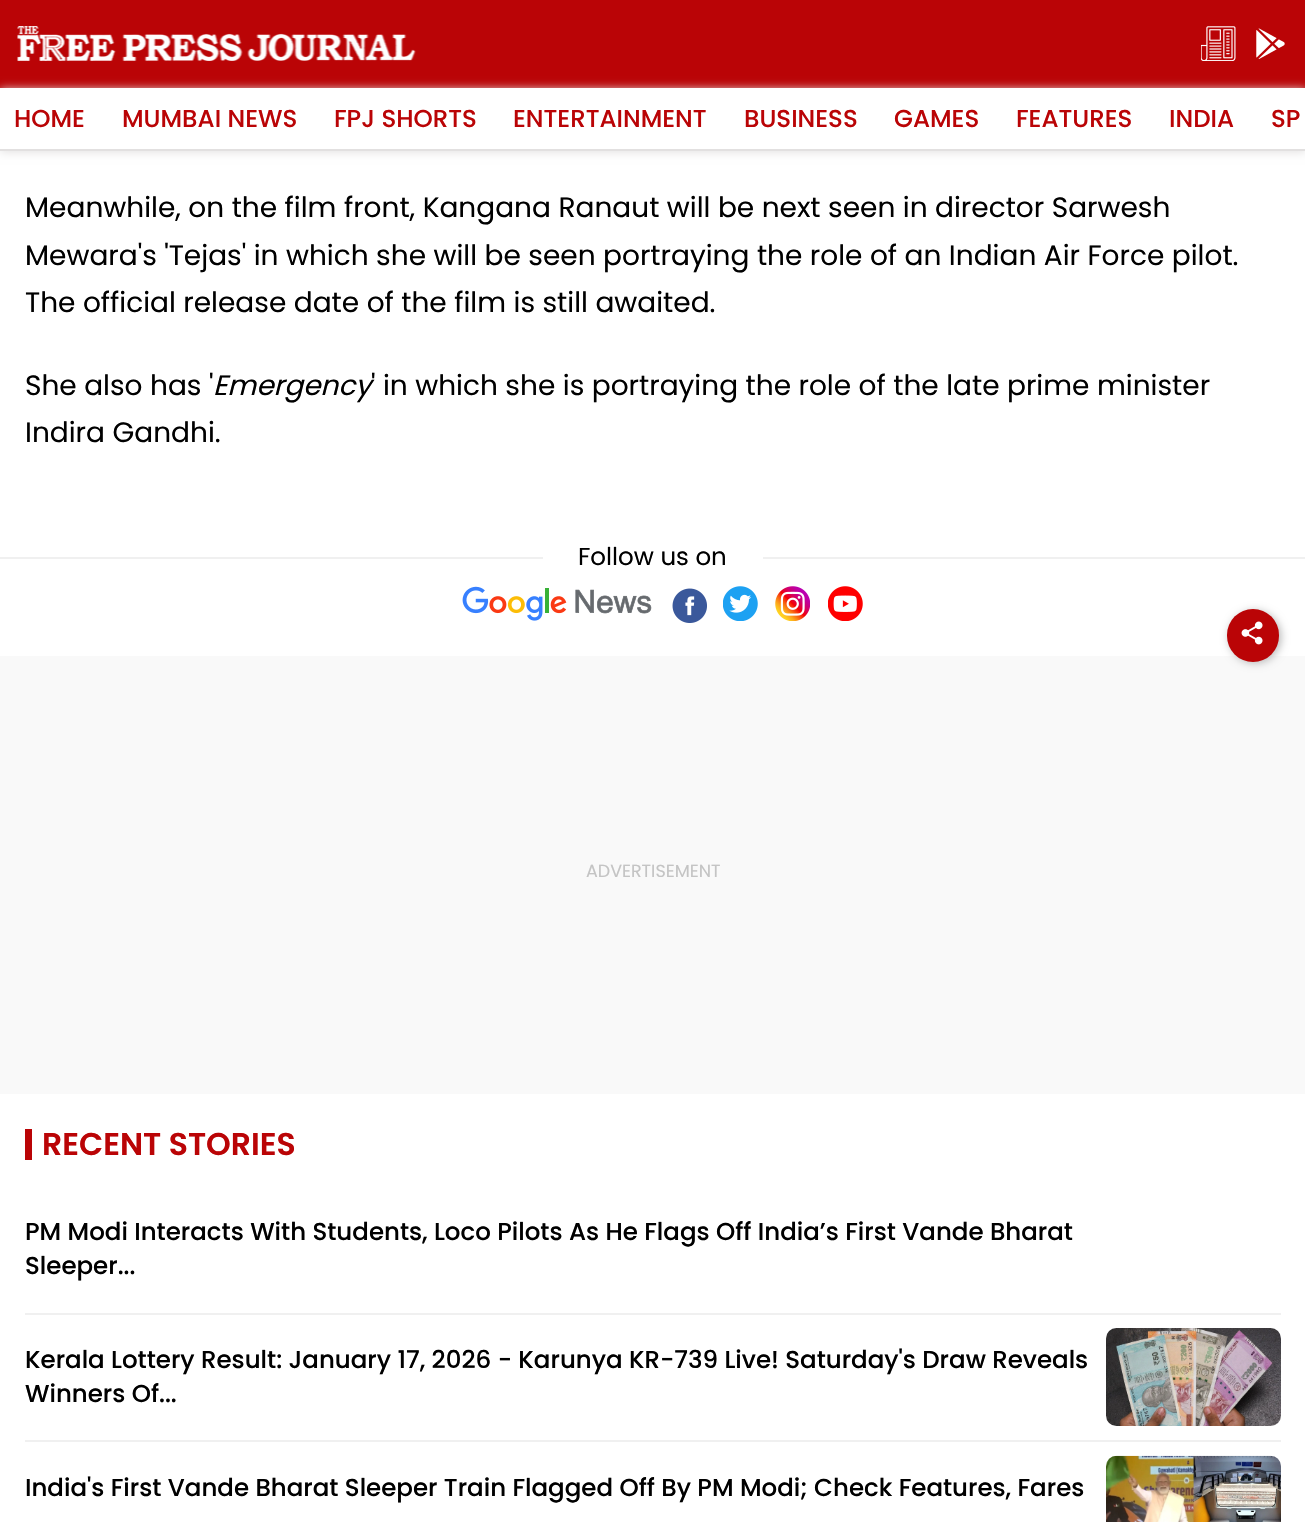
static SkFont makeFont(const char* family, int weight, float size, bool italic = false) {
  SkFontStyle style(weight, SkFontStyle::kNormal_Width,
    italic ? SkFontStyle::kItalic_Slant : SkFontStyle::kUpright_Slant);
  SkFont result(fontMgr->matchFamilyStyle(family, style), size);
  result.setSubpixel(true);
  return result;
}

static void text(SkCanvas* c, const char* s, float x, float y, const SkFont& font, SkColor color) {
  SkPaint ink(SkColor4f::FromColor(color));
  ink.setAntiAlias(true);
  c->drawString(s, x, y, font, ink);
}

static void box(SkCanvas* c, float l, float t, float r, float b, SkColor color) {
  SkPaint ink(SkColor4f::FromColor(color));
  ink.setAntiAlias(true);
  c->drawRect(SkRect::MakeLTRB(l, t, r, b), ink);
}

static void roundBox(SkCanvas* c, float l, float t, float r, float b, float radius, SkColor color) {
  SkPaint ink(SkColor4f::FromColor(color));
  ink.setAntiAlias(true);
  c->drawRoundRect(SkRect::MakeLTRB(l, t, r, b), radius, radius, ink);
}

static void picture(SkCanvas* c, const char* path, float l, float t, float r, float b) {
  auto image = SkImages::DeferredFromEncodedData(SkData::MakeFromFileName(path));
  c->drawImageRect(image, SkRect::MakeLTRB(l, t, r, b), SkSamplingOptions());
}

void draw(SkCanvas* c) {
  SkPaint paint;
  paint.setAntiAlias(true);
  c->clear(0xffffffff);
  box(c, 0, 0, 1305, 88, 0xffba0406);
  picture(c, "img_01.png", 17, 26, 416, 61);
  picture(c, "img_02.png", 1201, 26, 1236, 61);
  picture(c, "img_03.png", 1256, 28, 1285, 59);
  paint.setColor(0xffe2e0e0);
  paint.setMaskFilter(SkMaskFilter::MakeBlur(kNormal_SkBlurStyle, 4.5f));
  c->drawRect(SkRect::MakeLTRB(0, 89, 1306, 152), paint);
  paint.setMaskFilter(nullptr);
  box(c, 0, 88, 1305, 149, 0xffffffff);
  box(c, 0, 149, 1305, 151, 0xffe2e0e0);
  SkFont face1 = makeFont("Poppins", 500, 24.5f);
  text(c, "HOME", 14, 127, face1, 0xffba0406);
  text(c, "MUMBAI NEWS", 122, 127, face1, 0xffba0406);
  text(c, "FPJ SHORTS", 334, 127, face1, 0xffba0406);
  text(c, "ENTERTAINMENT", 513, 127, face1, 0xffba0406);
  text(c, "BUSINESS", 744, 127, face1, 0xffba0406);
  text(c, "GAMES", 894, 127, face1, 0xffba0406);
  text(c, "FEATURES", 1016, 127, face1, 0xffba0406);
  text(c, "INDIA", 1169, 127, face1, 0xffba0406);
  text(c, "SP", 1271, 127, face1, 0xffba0406);
  SkFont face2 = makeFont("Poppins", 400, 28);
  text(c, "Meanwhile, on the film front, Kangana Ranaut will be next seen in director Sarwesh", 25, 217, face2, 0xff000000);
  text(c, "Mewara's 'Tejas' in which she will be seen portraying the role of an Indian Air Force pilot.", 25, 265, face2, 0xff000000);
  text(c, "The official release date of the film is still awaited.", 25, 312, face2, 0xff000000);
  text(c, "She also has '", 25, 395, face2, 0xff000000);
  SkFont face3 = makeFont("Poppins", 400, 28, true);
  text(c, "Emergency", 213, 395, face3, 0xff000000);
  text(c, "' in which she is portraying the role of the late prime minister", 371, 395, face2, 0xff000000);
  text(c, "Indira Gandhi.", 25, 442, face2, 0xff000000);
  box(c, 0, 557, 1305, 559, 0xfff0f0f0);
  box(c, 543, 557, 763, 559, 0xffffffff);
  SkFont face4 = makeFont("Poppins", 400, 24.5f);
  text(c, "Follow us on", 578, 565, face4, 0xff000000);
  picture(c, "img_04.png", 462, 586, 652, 621);
  picture(c, "img_05.png", 672, 588, 707, 623);
  picture(c, "img_06.png", 723, 586, 758, 621);
  picture(c, "img_07.png", 775, 586, 810, 621);
  picture(c, "img_08.png", 828, 586, 863, 621);
  box(c, 0, 656, 1305, 1094, 0xfff9f9f9);
  paint.setColor(0xffb5b5b5);
  paint.setMaskFilter(SkMaskFilter::MakeBlur(kNormal_SkBlurStyle, 4.5f));
  c->drawRoundRect(SkRect::MakeLTRB(1229, 611, 1281, 663), 26, 26, paint);
  paint.setMaskFilter(nullptr);
  roundBox(c, 1227, 609, 1279, 662, 26, 0xffba0406);
  picture(c, "img_09.png", 1241, 621, 1263, 645);
  SkFont face5 = makeFont("Poppins", 400, 17.5f);
  text(c, "ADVERTISEMENT", 586, 877, face5, 0xffc4c4c4);
  box(c, 25, 1129, 32, 1160, 0xffba0406);
  SkFont face6 = makeFont("Poppins", 600, 31.5f);
  text(c, "RECENT STORIES", 42, 1155, face6, 0xffba0406);
  box(c, 25, 1313, 1281, 1315, 0xfff0f0f0);
  text(c, "PM Modi Interacts With Students, Loco Pilots As He Flags Off India’s First Vande Bharat", 25, 1240, face1, 0xff000000);
  text(c, "Sleeper...", 25, 1274, face1, 0xff000000);
  box(c, 25, 1440, 1281, 1442, 0xfff0f0f0);
  text(c, "Kerala Lottery Result: January 17, 2026 - Karunya KR-739 Live! Saturday's Draw Reveals", 25, 1368, face1, 0xff000000);
  text(c, "Winners Of...", 25, 1402, face1, 0xff000000);
  picture(c, "img_10.png", 1106, 1328, 1281, 1426);
  text(c, "India's First Vande Bharat Sleeper Train Flagged Off By PM Modi; Check Features, Fares", 25, 1496, face1, 0xff000000);
  picture(c, "img_11.png", 1106, 1455, 1281, 1522);
}
